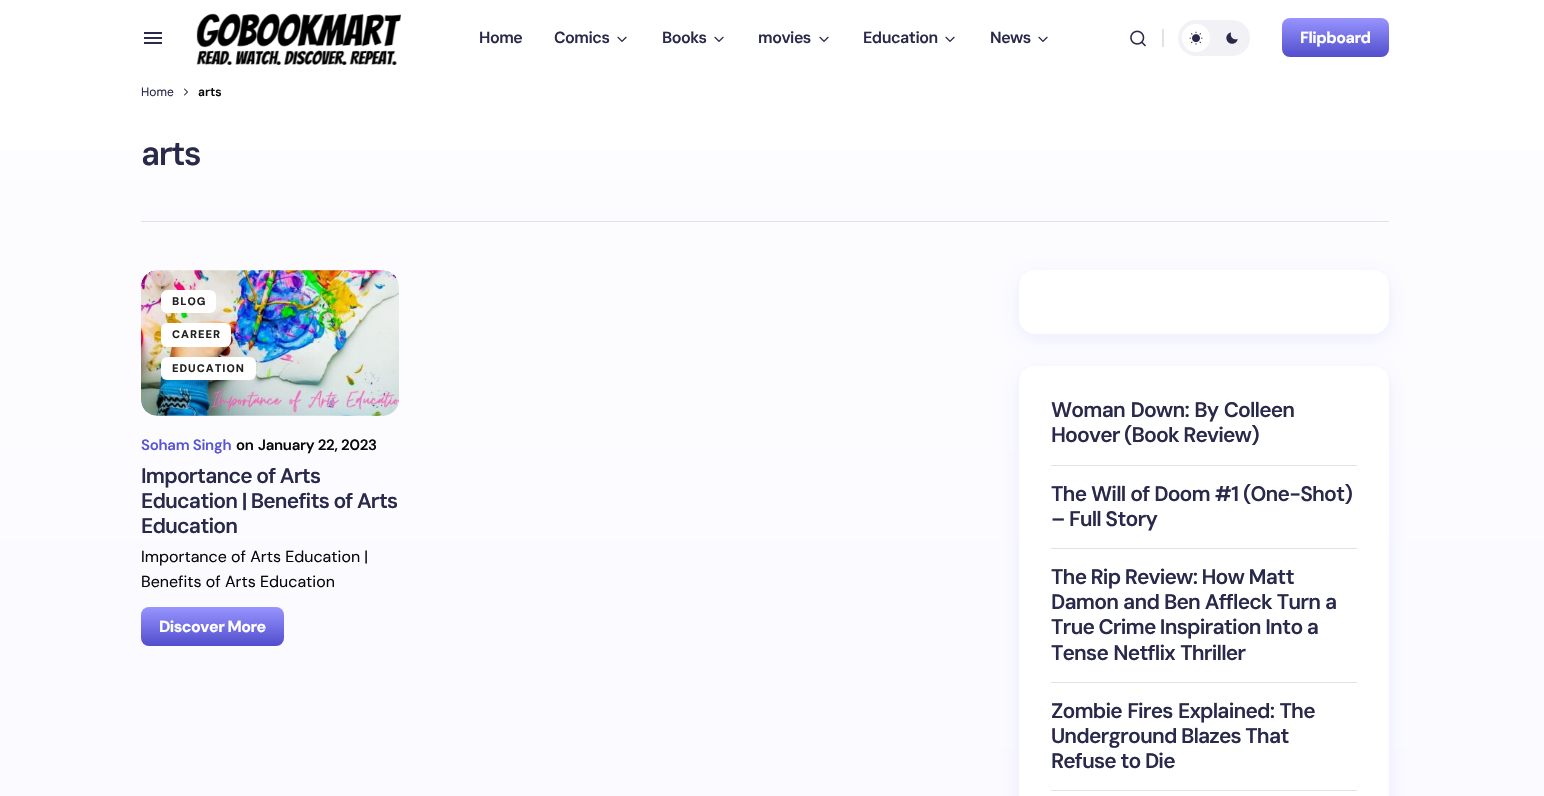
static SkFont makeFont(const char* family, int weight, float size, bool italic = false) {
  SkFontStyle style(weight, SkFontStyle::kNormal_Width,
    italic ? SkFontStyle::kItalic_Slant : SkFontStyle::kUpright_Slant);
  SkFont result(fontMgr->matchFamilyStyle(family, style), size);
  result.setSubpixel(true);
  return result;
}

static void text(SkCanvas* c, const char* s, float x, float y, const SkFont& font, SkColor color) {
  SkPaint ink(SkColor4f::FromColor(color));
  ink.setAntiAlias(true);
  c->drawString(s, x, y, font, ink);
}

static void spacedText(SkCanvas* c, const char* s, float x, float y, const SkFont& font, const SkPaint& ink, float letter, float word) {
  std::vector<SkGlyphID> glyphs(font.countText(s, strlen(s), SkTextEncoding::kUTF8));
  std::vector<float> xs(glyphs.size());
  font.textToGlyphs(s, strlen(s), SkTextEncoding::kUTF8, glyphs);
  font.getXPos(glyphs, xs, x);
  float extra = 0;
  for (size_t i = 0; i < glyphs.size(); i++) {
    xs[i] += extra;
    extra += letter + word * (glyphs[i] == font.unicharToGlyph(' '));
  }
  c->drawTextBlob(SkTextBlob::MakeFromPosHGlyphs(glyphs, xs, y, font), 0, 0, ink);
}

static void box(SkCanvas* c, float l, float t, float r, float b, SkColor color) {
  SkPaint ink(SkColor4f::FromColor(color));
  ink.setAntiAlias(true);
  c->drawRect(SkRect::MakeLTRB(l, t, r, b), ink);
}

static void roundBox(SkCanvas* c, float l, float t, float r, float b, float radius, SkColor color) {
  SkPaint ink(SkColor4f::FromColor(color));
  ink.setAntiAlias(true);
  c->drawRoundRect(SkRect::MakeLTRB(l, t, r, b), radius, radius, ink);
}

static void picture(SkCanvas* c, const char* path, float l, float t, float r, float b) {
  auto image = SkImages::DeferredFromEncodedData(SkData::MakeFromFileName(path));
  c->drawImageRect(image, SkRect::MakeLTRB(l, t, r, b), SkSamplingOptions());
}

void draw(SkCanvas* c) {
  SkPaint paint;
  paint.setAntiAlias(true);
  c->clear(0xffffffff);
  {
    const SkColor colors[] = {0xfffdfdff, 0xfff8f7ff};
    const float stops[] = {0, 1};
    const SkPoint ends[] = {{764, 0}, {765, 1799}};
    paint.setShader(SkGradientShader::MakeLinear(ends, colors, stops, 2, SkTileMode::kClamp));
    paint.setAlpha(255);
  }
  c->drawRect(SkRect::MakeLTRB(0, 150, 1544, 796), paint);
  picture(c, "img_01.png", 144, 32, 162, 44);
  picture(c, "img_02.png", 196, 13, 401, 65);
  SkFont face1 = makeFont("DM Sans", 600, 16);
  paint.setShader(nullptr);
  paint.setColor(0xff29294b);
  spacedText(c, "Home", 479, 43, face1, paint, -0.5f, 0);
  spacedText(c, "Comics", 554, 43, face1, paint, -0.5f, 0);
  picture(c, "img_03.png", 617, 36, 627, 42);
  spacedText(c, "Books", 662, 43, face1, paint, -0.5f, 0);
  picture(c, "img_03.png", 714, 36, 724, 42);
  spacedText(c, "movies", 758, 43, face1, paint, -0.5f, 0);
  picture(c, "img_03.png", 819, 36, 829, 42);
  spacedText(c, "Education", 863, 43, face1, paint, -0.5f, 0);
  picture(c, "img_03.png", 945, 36, 955, 42);
  spacedText(c, "News", 990, 43, face1, paint, -0.5f, 0);
  picture(c, "img_03.png", 1038, 36, 1048, 42);
  picture(c, "img_04.png", 1130, 30, 1146, 47);
  box(c, 1162, 29, 1164, 47, 0xffe1e1e8);
  roundBox(c, 1178, 20, 1250, 56, 18, 0xfff2f2f6);
  paint.setColor(0xffffffff);
  c->drawCircle(1196, 38, 14, paint);
  picture(c, "img_05.png", 1189, 31, 1203, 45);
  picture(c, "img_06.png", 1226, 32, 1238, 44);
  {
    const SkColor colors[] = {0xff9895ff, 0xff514dcc};
    const float stops[] = {0, 1};
    const SkPoint ends[] = {{1336, 18}, {1336, 57}};
    paint.setShader(SkGradientShader::MakeLinear(ends, colors, stops, 2, SkTileMode::kClamp));
    paint.setAlpha(255);
  }
  c->drawRoundRect(SkRect::MakeLTRB(1282, 18, 1389, 57), 8, 8, paint);
  SkFont face2 = makeFont("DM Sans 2", 800, 16);
  paint.setShader(nullptr);
  paint.setColor(0xffffffff);
  spacedText(c, "Flipboard", 1300, 43, face2, paint, -0.5f, 0);
  SkFont face3 = makeFont("DM Sans", 400, 12);
  text(c, "Home", 141, 96, face3, 0xff29294b);
  picture(c, "img_07.png", 184, 88, 188, 96);
  SkFont face4 = makeFont("DM Sans", 600, 12);
  text(c, "arts", 198, 96, face4, 0xff0a0808);
  box(c, 141, 221, 1389, 222, 0xffe1e1e8);
  SkFont face5 = makeFont("DM Sans", 600, 33);
  paint.setColor(0xff29294b);
  spacedText(c, "arts", 141, 165, face5, paint, -1.5f, 0);
  picture(c, "img_08.png", 141, 270, 399, 416);
  roundBox(c, 161, 290, 216, 313, 6, 0xffffffff);
  SkFont face6 = makeFont("DM Sans", 800, 11);
  paint.setColor(0xff222222);
  spacedText(c, "BLOG", 172, 305, face6, paint, 1, 0);
  roundBox(c, 161, 323, 231, 347, 6, 0xffffffff);
  spacedText(c, "CAREER", 172, 338, face6, paint, 1, 0);
  roundBox(c, 161, 357, 256, 380, 6, 0xffffffff);
  spacedText(c, "EDUCATION", 172, 372, face6, paint, 1, 0);
  SkFont face7 = makeFont("DM Sans 2", 600, 15);
  paint.setColor(0xff5955d1);
  spacedText(c, "Soham Singh", 141, 450, face7, paint, -0.25f, 0);
  paint.setColor(0xff0a0808);
  spacedText(c, "on", 236, 450, face7, paint, -0.25f, 0);
  spacedText(c, "January 22, 2023", 258, 450, face7, paint, -0.25f, 0);
  SkFont face8 = makeFont("DM Sans", 600, 21);
  paint.setColor(0xff29294b);
  spacedText(c, "Importance of Arts", 141, 483, face8, paint, -0.85f, 0);
  spacedText(c, "Education | Benefits of Arts", 141, 508, face8, paint, -0.85f, 0);
  spacedText(c, "Education", 141, 533, face8, paint, -0.85f, 0);
  SkFont face9 = makeFont("DM Sans 2", 400, 16);
  text(c, "Importance of Arts Education |", 141, 562, face9, 0xff0a0808);
  text(c, "Benefits of Arts Education", 141, 587, face9, 0xff0a0808);
  {
    const SkColor colors[] = {0xff9895ff, 0xff514dcc};
    const float stops[] = {0, 1};
    const SkPoint ends[] = {{213, 607}, {213, 646}};
    paint.setShader(SkGradientShader::MakeLinear(ends, colors, stops, 2, SkTileMode::kClamp));
    paint.setAlpha(255);
  }
  c->drawRoundRect(SkRect::MakeLTRB(141, 607, 284, 646), 8, 8, paint);
  paint.setShader(nullptr);
  paint.setColor(0xffffffff);
  spacedText(c, "Discover More", 159, 632, face2, paint, -0.5f, 0);
  paint.setColor(0x1f7272ff);
  paint.setMaskFilter(SkMaskFilter::MakeBlur(kNormal_SkBlurStyle, 10));
  c->drawRoundRect(SkRect::MakeLTRB(1019, 275, 1389, 339), 16, 16, paint);
  paint.setMaskFilter(nullptr);
  roundBox(c, 1019, 270, 1389, 334, 16, 0xffffffff);
  paint.setMaskFilter(SkMaskFilter::MakeBlur(kNormal_SkBlurStyle, 10));
  c->drawRoundRect(SkRect::MakeLTRB(1019, 371, 1389, 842), 16, 16, paint);
  paint.setMaskFilter(nullptr);
  roundBox(c, 1019, 366, 1389, 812, 16, 0xffffffff);
  box(c, 1051, 465, 1357, 466, 0xffe1e1e8);
  paint.setColor(0xff29294b);
  spacedText(c, "Woman Down: By Colleen", 1051, 417, face8, paint, -0.85f, 1);
  spacedText(c, "Hoover (Book Review)", 1051, 442, face8, paint, -0.85f, 0);
  box(c, 1051, 548, 1357, 549, 0xffe1e1e8);
  spacedText(c, "The Will of Doom #1 (One-Shot)", 1051, 501, face8, paint, -0.85f, 0.5f);
  spacedText(c, "– Full Story", 1051, 526, face8, paint, -0.85f, 0);
  box(c, 1051, 682, 1357, 683, 0xffe1e1e8);
  spacedText(c, "The Rip Review: How Matt", 1051, 584, face8, paint, -0.85f, 0);
  spacedText(c, "Damon and Ben Affleck Turn a", 1051, 609, face8, paint, -0.85f, 0.5f);
  spacedText(c, "True Crime Inspiration Into a", 1051, 634, face8, paint, -0.85f, 0);
  spacedText(c, "Tense Netflix Thriller", 1051, 660, face8, paint, -0.85f, 1);
  box(c, 1051, 790, 1357, 791, 0xffe1e1e8);
  spacedText(c, "Zombie Fires Explained: The", 1051, 718, face8, paint, -0.85f, 1);
  spacedText(c, "Underground Blazes That", 1051, 743, face8, paint, -0.85f, 0);
  spacedText(c, "Refuse to Die", 1051, 768, face8, paint, -0.85f, 0);
}
